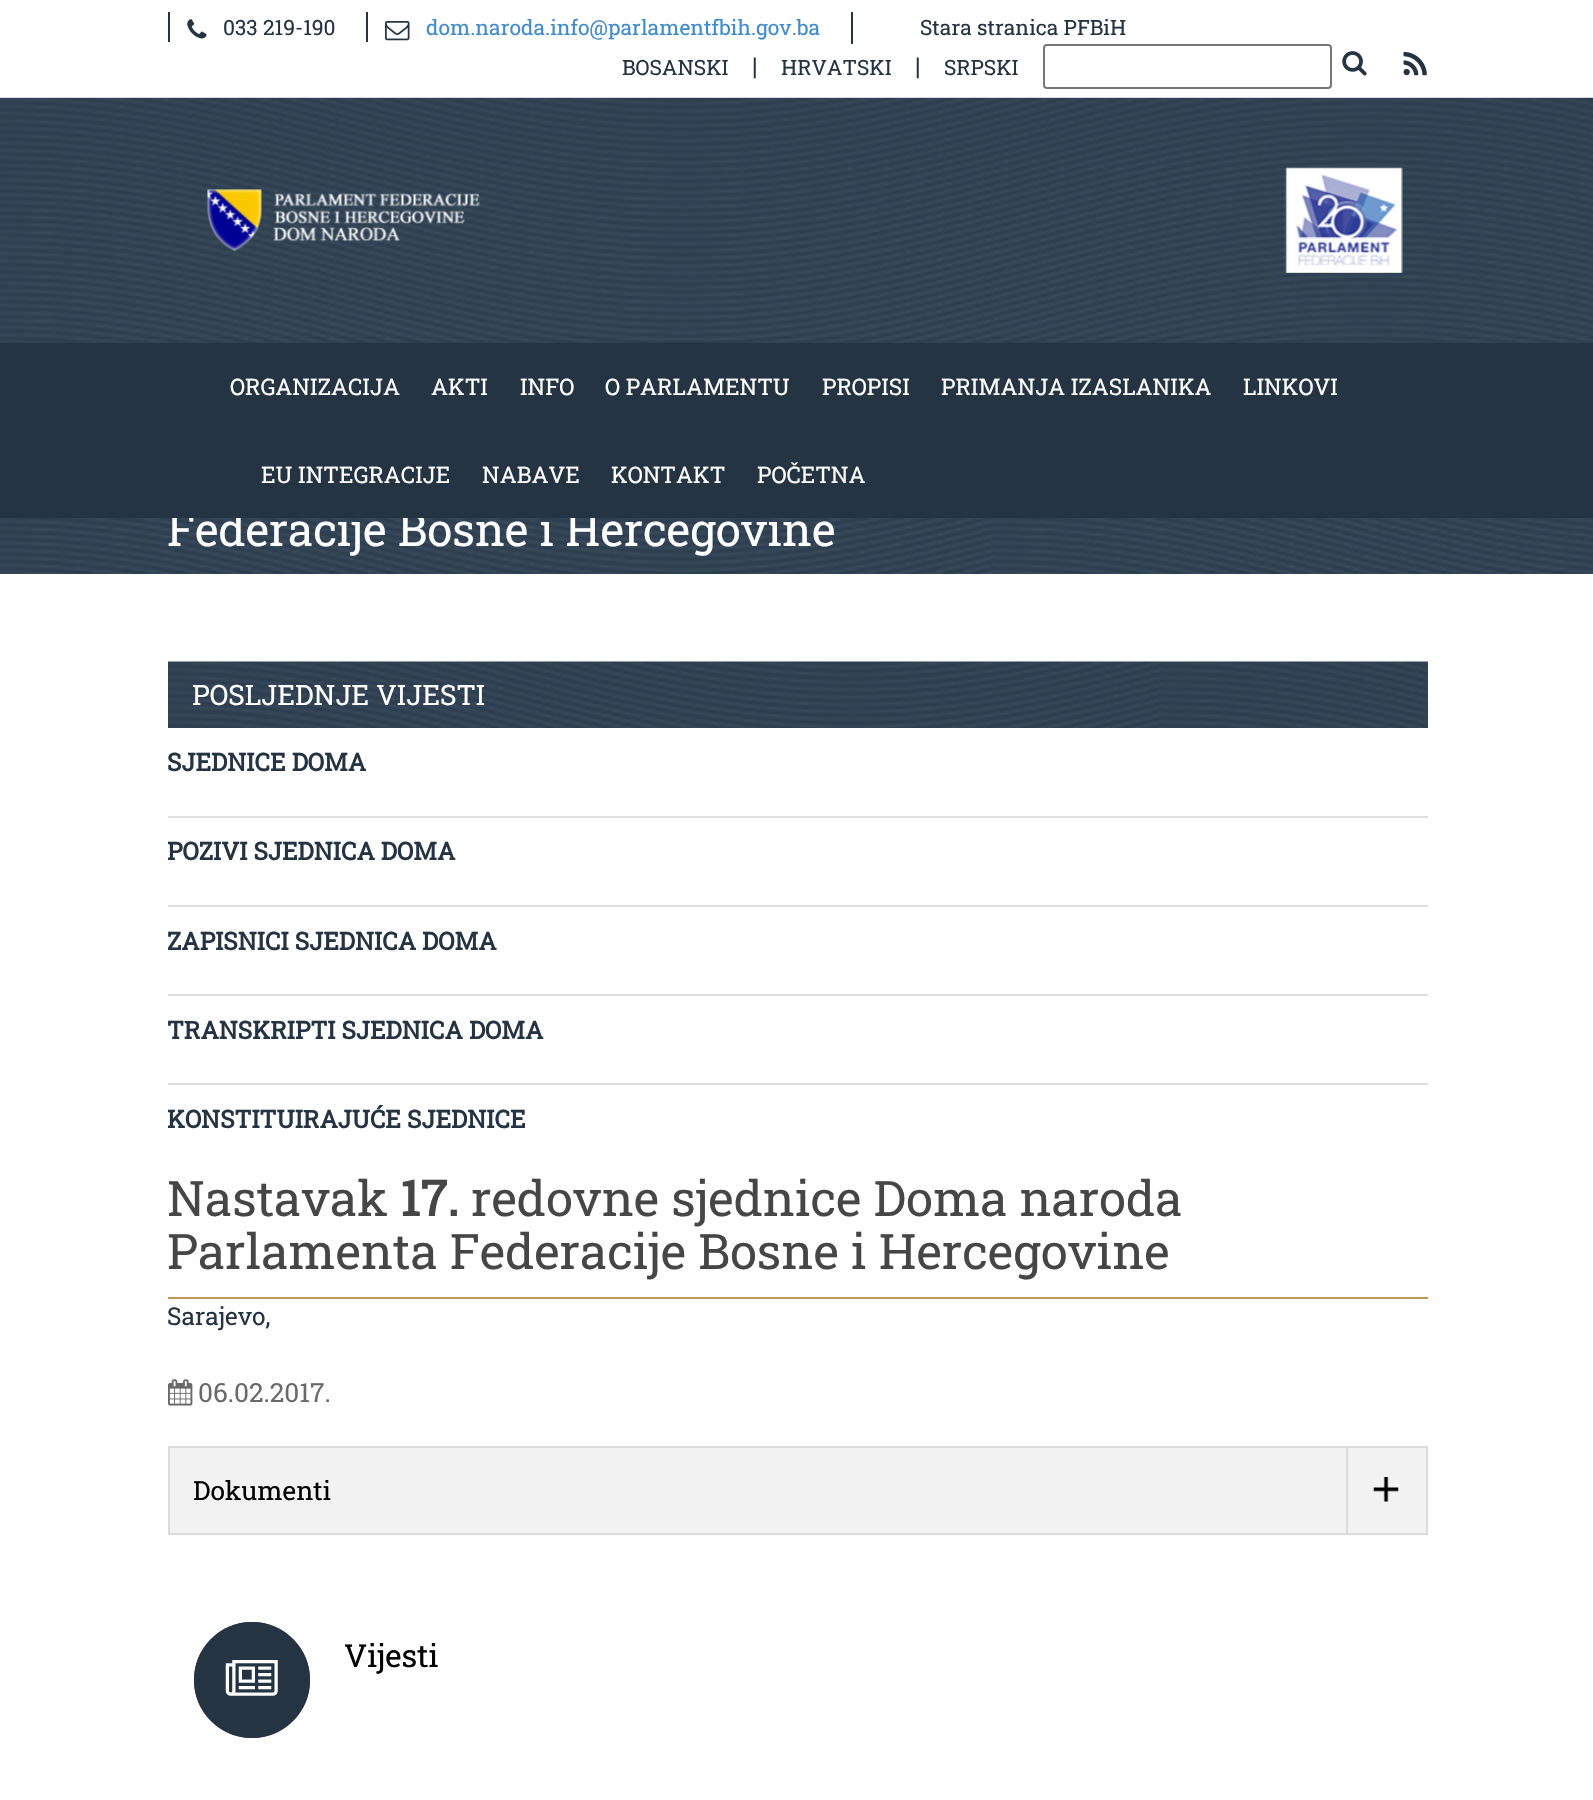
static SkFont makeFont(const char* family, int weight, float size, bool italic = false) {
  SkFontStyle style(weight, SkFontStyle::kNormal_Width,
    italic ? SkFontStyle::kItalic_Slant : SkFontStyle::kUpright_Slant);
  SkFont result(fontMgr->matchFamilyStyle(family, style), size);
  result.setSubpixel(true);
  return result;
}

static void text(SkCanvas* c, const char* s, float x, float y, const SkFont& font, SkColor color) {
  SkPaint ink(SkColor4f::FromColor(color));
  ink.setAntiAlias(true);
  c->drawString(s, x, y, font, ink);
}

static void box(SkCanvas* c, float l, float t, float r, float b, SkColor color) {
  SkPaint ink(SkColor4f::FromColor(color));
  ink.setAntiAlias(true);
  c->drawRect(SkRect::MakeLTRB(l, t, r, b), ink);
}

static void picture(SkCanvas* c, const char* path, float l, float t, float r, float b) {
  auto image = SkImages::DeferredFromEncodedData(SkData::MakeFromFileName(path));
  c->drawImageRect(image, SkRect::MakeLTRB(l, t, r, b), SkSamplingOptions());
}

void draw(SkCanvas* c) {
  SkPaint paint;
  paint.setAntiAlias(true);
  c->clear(0xffffffff);
  picture(c, "img_08.png", 0, 518, 1593, 574);
  SkFont face1 = makeFont("Roboto Slab", 400, 45.5f);
  text(c, "Federacije Bosne i Hercegovine", 167, 546, face1, 0xffffffff);
  box(c, 0, 98, 1593, 518, 0xff253443);
  box(c, 168, 12, 170, 42, 0xff253443);
  picture(c, "img_01.png", 187, 19, 207, 39);
  SkFont face2 = makeFont("Roboto Slab", 400, 21);
  text(c, "033 219-190", 223, 35, face2, 0xff253443);
  box(c, 366, 12, 368, 42, 0xff253443);
  picture(c, "img_02.png", 385, 21, 410, 41);
  text(c, "dom.naroda.info@parlamentfbih.gov.ba", 426, 35, face2, 0xff428bca);
  box(c, 851, 12, 853, 44, 0xff253443);
  text(c, "Stara stranica PFBiH", 920, 35, face2, 0xff253443);
  text(c, "BOSANSKI", 622, 75, face2, 0xff253443);
  SkFont face3 = makeFont("Roboto Slab", 400, 24.5f);
  text(c, "|", 752, 75, face3, 0xff253443);
  text(c, "HRVATSKI", 781, 75, face2, 0xff253443);
  text(c, "|", 915, 75, face3, 0xff253443);
  text(c, "SRPSKI", 944, 75, face2, 0xff253443);
  paint.setStyle(SkPaint::kStroke_Style);
  paint.setStrokeWidth(2);
  paint.setColor(0xff767676);
  c->drawRoundRect(SkRect::MakeLTRB(1044, 45, 1331, 88), 3, 3, paint);
  picture(c, "img_03.png", 1342, 51, 1367, 76);
  picture(c, "img_04.png", 1403, 51, 1427, 76);
  picture(c, "img_05.png", 0, 97, 1593, 343);
  picture(c, "img_06.png", 207, 189, 480, 252);
  picture(c, "img_07.png", 1285, 167, 1403, 273);
  SkFont face4 = makeFont("Roboto Slab", 400, 22.75f);
  text(c, "ORGANIZACIJA", 230, 395, face4, 0xffffffff);
  text(c, "AKTI", 431, 395, face4, 0xffffffff);
  text(c, "INFO", 520, 395, face4, 0xffffffff);
  text(c, "O PARLAMENTU", 605, 395, face4, 0xffffffff);
  text(c, "PROPISI", 822, 395, face4, 0xffffffff);
  text(c, "PRIMANJA IZASLANIKA", 941, 395, face4, 0xffffffff);
  text(c, "LINKOVI", 1243, 395, face4, 0xffffffff);
  text(c, "EU INTEGRACIJE", 261, 483, face4, 0xffffffff);
  text(c, "NABAVE", 482, 483, face4, 0xffffffff);
  text(c, "KONTAKT", 611, 483, face4, 0xffffffff);
  text(c, "POČETNA", 757, 483, face4, 0xffffffff);
  picture(c, "img_09.png", 168, 661, 1428, 728);
  SkFont face5 = makeFont("Roboto Slab", 400, 28);
  text(c, "POSLJEDNJE VIJESTI", 192, 705, face5, 0xffffffff);
  SkFont face6 = makeFont("Roboto Slab", 700, 24.5f);
  text(c, "SJEDNICE DOMA", 167, 771, face6, 0xff253443);
  box(c, 168, 816, 1428, 818, 0xffdedede);
  text(c, "POZIVI SJEDNICA DOMA", 167, 860, face6, 0xff253443);
  box(c, 168, 905, 1428, 907, 0xffdedede);
  text(c, "ZAPISNICI SJEDNICA DOMA", 167, 950, face6, 0xff253443);
  box(c, 168, 994, 1428, 996, 0xffdedede);
  text(c, "TRANSKRIPTI SJEDNICA DOMA", 167, 1039, face6, 0xff253443);
  box(c, 168, 1083, 1428, 1085, 0xffdedede);
  text(c, "KONSTITUIRAJUĆE SJEDNICE", 167, 1128, face6, 0xff253443);
  box(c, 168, 1297, 1428, 1299, 0xffbe965a);
  SkFont face7 = makeFont("Roboto Slab", 400, 49);
  text(c, "Nastavak", 167, 1216, face7, 0xff464646);
  SkFont face8 = makeFont("Roboto Slab", 700, 49);
  text(c, "17.", 400, 1216, face8, 0xff464646);
  text(c, "redovne sjednice Doma naroda", 471, 1216, face7, 0xff464646);
  text(c, "Parlamenta Federacije Bosne i Hercegovine", 167, 1269, face7, 0xff464646);
  text(c, "Sarajevo,", 167, 1325, face3, 0xff253443);
  picture(c, "img_10.png", 168, 1379, 193, 1406);
  SkFont face9 = makeFont("Roboto Slab", 400, 26.25f);
  text(c, "06.02.2017.", 198, 1402, face9, 0xff696969);
  paint.setStyle(SkPaint::kFill_Style);
  paint.setColor(0xfff2f2f2);
  c->drawRect(SkRect::MakeLTRB(169, 1447, 1427, 1534), paint);
  paint.setStyle(SkPaint::kStroke_Style);
  paint.setColor(0xffdbdbdb);
  c->drawRect(SkRect::MakeLTRB(169, 1447, 1427, 1534), paint);
  text(c, "Dokumenti", 193, 1500, face9, 0xff000000);
  picture(c, "img_11.png", 1373, 1477, 1399, 1502);
  box(c, 1346, 1447, 1348, 1533, 0xffdbdbdb);
  paint.setStyle(SkPaint::kFill_Style);
  paint.setColor(0xff253443);
  c->drawCircle(252, 1680, 58, paint);
  picture(c, "img_12.png", 225, 1660, 278, 1696);
  paint.setStyle(SkPaint::kStroke_Style);
  c->drawCircle(252, 1680, 57, paint);
  SkFont face10 = makeFont("Roboto Slab", 400, 31.5f);
  text(c, "Vijesti", 344, 1667, face10, 0xff000000);
}
